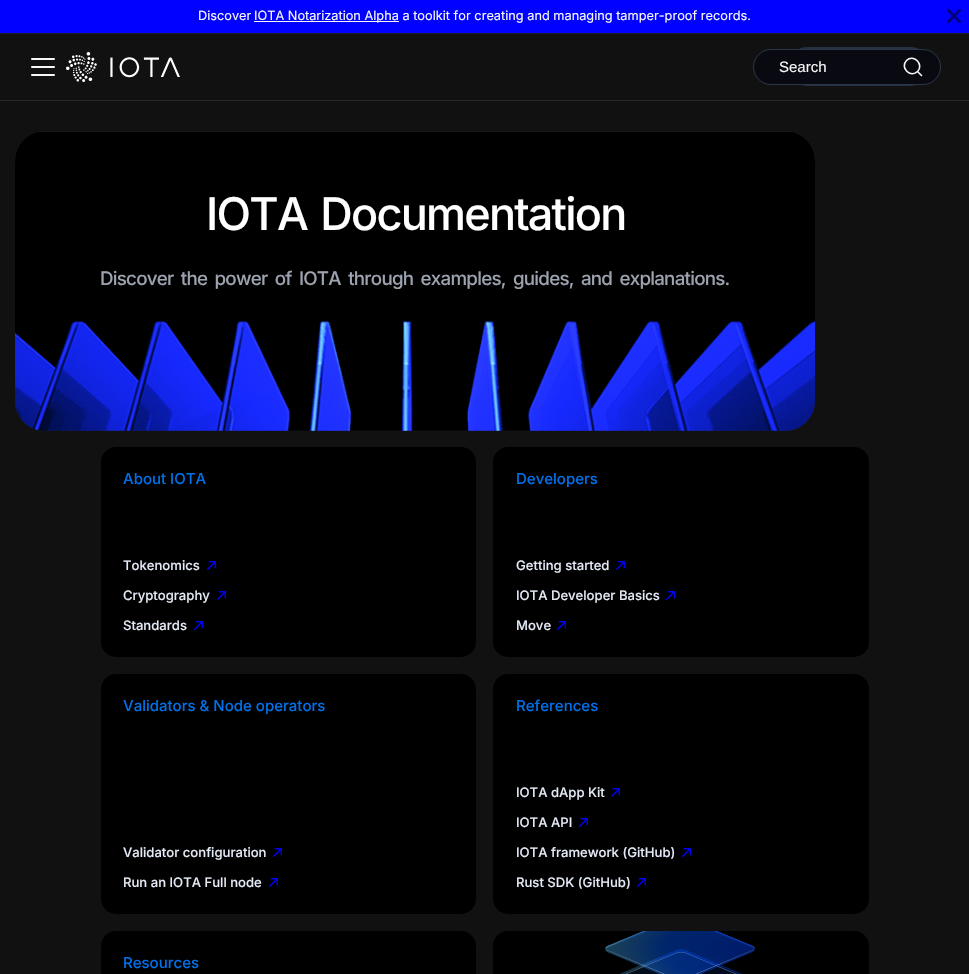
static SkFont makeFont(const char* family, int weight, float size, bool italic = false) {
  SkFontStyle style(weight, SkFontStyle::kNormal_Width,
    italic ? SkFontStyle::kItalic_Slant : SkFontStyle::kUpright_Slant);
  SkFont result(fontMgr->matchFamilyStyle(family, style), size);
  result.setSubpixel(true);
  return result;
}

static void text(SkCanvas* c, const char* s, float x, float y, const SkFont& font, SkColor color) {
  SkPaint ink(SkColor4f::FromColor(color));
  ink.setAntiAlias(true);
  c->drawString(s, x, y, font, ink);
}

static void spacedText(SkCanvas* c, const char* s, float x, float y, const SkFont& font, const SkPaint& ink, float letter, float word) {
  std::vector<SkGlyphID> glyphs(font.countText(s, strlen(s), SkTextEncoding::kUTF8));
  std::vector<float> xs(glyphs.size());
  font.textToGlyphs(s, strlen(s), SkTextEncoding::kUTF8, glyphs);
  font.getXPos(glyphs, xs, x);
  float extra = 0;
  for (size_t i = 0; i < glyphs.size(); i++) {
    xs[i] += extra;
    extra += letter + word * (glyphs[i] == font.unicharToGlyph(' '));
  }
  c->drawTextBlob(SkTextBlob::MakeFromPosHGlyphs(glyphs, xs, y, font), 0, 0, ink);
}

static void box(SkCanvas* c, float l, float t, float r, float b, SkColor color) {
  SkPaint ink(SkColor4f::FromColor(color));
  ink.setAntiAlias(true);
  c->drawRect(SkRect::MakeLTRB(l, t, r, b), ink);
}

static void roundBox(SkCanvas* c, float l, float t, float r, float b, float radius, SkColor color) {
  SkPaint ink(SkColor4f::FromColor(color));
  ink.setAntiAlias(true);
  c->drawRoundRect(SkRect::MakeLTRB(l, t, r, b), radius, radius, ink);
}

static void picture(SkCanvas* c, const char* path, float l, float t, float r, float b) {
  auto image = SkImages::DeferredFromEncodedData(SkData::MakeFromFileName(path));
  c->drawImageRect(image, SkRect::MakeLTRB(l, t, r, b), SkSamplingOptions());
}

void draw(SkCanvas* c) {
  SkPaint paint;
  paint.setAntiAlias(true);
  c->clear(0xff111111);
  box(c, 0, 0, 969, 33, 0xff0101ff);
  box(c, 0, 33, 969, 34, 0xff1c1e21);
  SkFont face1 = makeFont("Inter", 400, 12.75f);
  text(c, "Discover", 198, 20, face1, 0xfff7f7f8);
  box(c, 254, 21, 399, 22, 0xfff7f7f8);
  text(c, "IOTA Notarization Alpha a toolkit for creating and managing tamper-proof records.", 254, 20, face1, 0xfff7f7f8);
  c->save();
  c->clipRect(SkRect::MakeLTRB(947, 9, 961, 23));
  paint.setStyle(SkPaint::kStroke_Style);
  paint.setStrokeWidth(2.9f);
  paint.setColor(0xff010180);
  c->drawPath(SkPathBuilder().moveTo(947.5f, 9.5f).lineTo(960.5f, 22.5f).moveTo(960.5f, 9.5f).lineTo(947.5f, 22.5f).detach(), paint);
  c->restore();
  box(c, 0, 100, 969, 101, 0xff282828);
  picture(c, "img_01.png", 31, 58, 55, 76);
  picture(c, "img_02.png", 66, 52, 180, 82);
  roundBox(c, 788, 47, 930, 86, 19.5f, 0xff253041);
  paint.setStyle(SkPaint::kFill_Style);
  paint.setColor(0xff090a11);
  c->drawRoundRect(SkRect::MakeLTRB(753.5f, 49.5f, 940.5f, 84.5f), 17.5f, 17.5f, paint);
  paint.setStyle(SkPaint::kStroke_Style);
  paint.setStrokeWidth(1);
  paint.setColor(0xff2a3645);
  c->drawRoundRect(SkRect::MakeLTRB(753.5f, 49.5f, 940.5f, 84.5f), 17.5f, 17.5f, paint);
  SkFont face2 = makeFont("Liberation Sans", 400, 15);
  text(c, "Search", 779, 72, face2, 0xfff7f7f8);
  paint.setStrokeWidth(1.6f);
  paint.setStrokeCap(SkPaint::kRound_Cap);
  paint.setStrokeJoin(SkPaint::kRound_Join);
  paint.setColor(0xfff5f6f7);
  c->drawPath(SkPathBuilder().moveTo(917.5f, 71.5f).lineTo(921.5f, 75.5f).lineTo(917.5f, 71.5f).cubicTo(910.5f, 78.5f, 899.5f, 67.5f, 906.5f, 60.5f).cubicTo(913.5f, 53.5f, 924.5f, 64.5f, 917.5f, 71.5f).close().detach(), paint);
  roundBox(c, 15, 131, 815, 431, 30, 0xff1a1e23);
  picture(c, "img_03.png", 15, 131, 815, 431);
  SkFont face3 = makeFont("Inter", 500, 45);
  paint.setStyle(SkPaint::kFill_Style);
  paint.setColor(0xffffffff);
  spacedText(c, "IOTA Documentation", 206, 230, face3, paint, -1.75f, 3);
  SkFont face4 = makeFont("Inter", 500, 18.75f);
  paint.setColor(0xff9ca3af);
  spacedText(c, "Discover the power of IOTA through examples, guides, and explanations.", 100, 285, face4, paint, -0.75f, 3);
  roundBox(c, 101, 447, 476, 657, 15, 0xff000000);
  SkFont face5 = makeFont("Inter", 500, 15);
  text(c, "About IOTA", 123, 484, face5, 0xff006fe8);
  SkFont face6 = makeFont("Inter", 500, 13.1f);
  text(c, "Tokenomics", 123, 570, face6, 0xffe4eaf6);
  picture(c, "img_04.png", 207, 561, 216, 570);
  text(c, "Cryptography", 123, 600, face6, 0xffe4eaf6);
  picture(c, "img_04.png", 217, 591, 226, 600);
  text(c, "Standards", 123, 630, face6, 0xffe4eaf6);
  picture(c, "img_04.png", 194, 621, 203, 630);
  roundBox(c, 493, 447, 869, 657, 15, 0xff000000);
  text(c, "Developers", 516, 484, face5, 0xff006fe8);
  text(c, "Getting started", 516, 570, face6, 0xffe4eaf6);
  picture(c, "img_04.png", 616, 561, 625, 570);
  text(c, "IOTA Developer Basics", 516, 600, face6, 0xffe4eaf6);
  picture(c, "img_04.png", 666, 591, 675, 600);
  text(c, "Move", 516, 630, face6, 0xffe4eaf6);
  picture(c, "img_04.png", 557, 621, 566, 630);
  roundBox(c, 101, 674, 476, 914, 15, 0xff000000);
  text(c, "Validators & Node operators", 123, 711, face5, 0xff006fe8);
  text(c, "Validator configuration", 123, 857, face6, 0xffe4eaf6);
  picture(c, "img_04.png", 273, 848, 282, 857);
  text(c, "Run an IOTA Full node", 123, 887, face6, 0xffe4eaf6);
  picture(c, "img_04.png", 269, 878, 278, 887);
  roundBox(c, 493, 674, 869, 914, 15, 0xff000000);
  text(c, "References", 516, 711, face5, 0xff006fe8);
  text(c, "IOTA dApp Kit", 516, 797, face6, 0xffe4eaf6);
  picture(c, "img_04.png", 611, 788, 620, 797);
  text(c, "IOTA API", 516, 827, face6, 0xffe4eaf6);
  picture(c, "img_04.png", 579, 818, 588, 827);
  text(c, "IOTA framework (GitHub)", 516, 857, face6, 0xffe4eaf6);
  picture(c, "img_04.png", 682, 848, 691, 857);
  text(c, "Rust SDK (GitHub)", 516, 887, face6, 0xffe4eaf6);
  picture(c, "img_04.png", 637, 878, 646, 887);
  roundBox(c, 101, 931, 476, 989, 15, 0xff000000);
  text(c, "Resources", 123, 968, face5, 0xff006fe8);
  roundBox(c, 493, 931, 869, 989, 15, 0xff000000);
  picture(c, "img_05.png", 493, 931, 868, 974);
}
